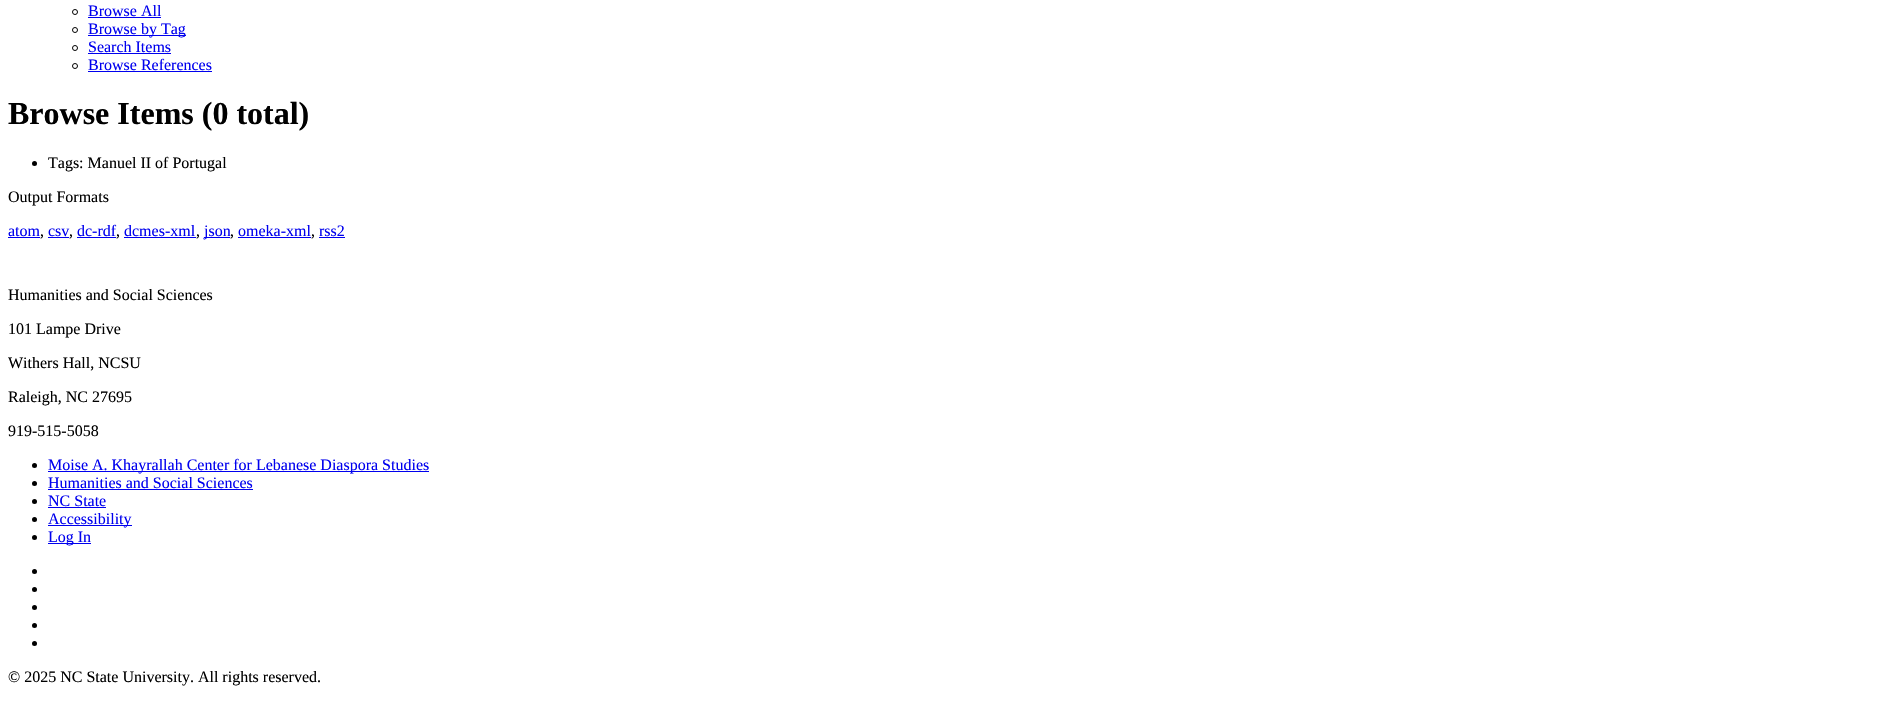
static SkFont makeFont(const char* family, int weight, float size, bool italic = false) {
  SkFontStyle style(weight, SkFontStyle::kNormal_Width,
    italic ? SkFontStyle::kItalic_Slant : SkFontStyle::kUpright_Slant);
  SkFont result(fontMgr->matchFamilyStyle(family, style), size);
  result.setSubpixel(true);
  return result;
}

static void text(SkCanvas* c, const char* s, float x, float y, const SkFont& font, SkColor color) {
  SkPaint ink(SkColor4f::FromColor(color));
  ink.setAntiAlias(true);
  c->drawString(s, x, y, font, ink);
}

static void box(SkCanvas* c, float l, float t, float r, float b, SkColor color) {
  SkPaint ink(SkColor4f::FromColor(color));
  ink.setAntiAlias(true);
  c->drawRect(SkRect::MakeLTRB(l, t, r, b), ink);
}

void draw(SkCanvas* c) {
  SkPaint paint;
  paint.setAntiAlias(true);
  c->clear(0xffffffff);
  paint.setStyle(SkPaint::kStroke_Style);
  paint.setStrokeWidth(1);
  paint.setColor(0xff000000);
  c->drawCircle(75, 12, 2.5f, paint);
  SkFont face1 = makeFont("Liberation Serif", 400, 16);
  text(c, "Browse All", 88, 16, face1, 0xff0000ee);
  box(c, 88, 17, 161, 18, 0xff0000ee);
  c->drawCircle(75, 30, 2.5f, paint);
  box(c, 88, 35, 186, 36, 0xff0000ee);
  text(c, "Browse by Tag", 88, 34, face1, 0xff0000ee);
  c->drawCircle(75, 48, 2.5f, paint);
  text(c, "Search Items", 88, 52, face1, 0xff0000ee);
  box(c, 88, 53, 171, 54, 0xff0000ee);
  c->drawCircle(75, 66, 2.5f, paint);
  text(c, "Browse References", 88, 70, face1, 0xff0000ee);
  box(c, 88, 71, 212, 72, 0xff0000ee);
  SkFont face2 = makeFont("Liberation Serif", 700, 32);
  text(c, "Browse Items (0 total)", 8, 124, face2, 0xff000000);
  paint.setStyle(SkPaint::kFill_Style);
  c->drawCircle(34.5f, 163.5f, 2.5f, paint);
  text(c, "Tags: Manuel II of Portugal", 48, 168, face1, 0xff000000);
  text(c, "Output Formats", 8, 202, face1, 0xff000000);
  text(c, "atom", 8, 236, face1, 0xff0000ee);
  box(c, 8, 237, 40, 238, 0xff0000ee);
  text(c, ",", 40, 236, face1, 0xff000000);
  text(c, "csv", 48, 236, face1, 0xff0000ee);
  box(c, 48, 237, 69, 238, 0xff0000ee);
  text(c, ",", 69, 236, face1, 0xff000000);
  text(c, "dc-rdf", 77, 236, face1, 0xff0000ee);
  box(c, 77, 237, 116, 238, 0xff0000ee);
  text(c, ",", 116, 236, face1, 0xff000000);
  text(c, "dcmes-xml", 124, 236, face1, 0xff0000ee);
  box(c, 124, 237, 196, 238, 0xff0000ee);
  text(c, ",", 196, 236, face1, 0xff000000);
  box(c, 204, 237, 230, 238, 0xff0000ee);
  text(c, "json", 204, 236, face1, 0xff0000ee);
  text(c, ",", 230, 236, face1, 0xff000000);
  text(c, "omeka-xml", 238, 236, face1, 0xff0000ee);
  box(c, 238, 237, 311, 238, 0xff0000ee);
  text(c, ",", 311, 236, face1, 0xff000000);
  text(c, "rss2", 319, 236, face1, 0xff0000ee);
  box(c, 319, 237, 345, 238, 0xff0000ee);
  text(c, "Humanities and Social Sciences", 8, 300, face1, 0xff000000);
  text(c, "101 Lampe Drive", 8, 334, face1, 0xff000000);
  text(c, "Withers Hall, NCSU", 8, 368, face1, 0xff000000);
  text(c, "Raleigh, NC 27695", 8, 402, face1, 0xff000000);
  text(c, "919-515-5058", 8, 436, face1, 0xff000000);
  c->drawCircle(34.5f, 465.5f, 2.5f, paint);
  box(c, 48, 471, 429, 472, 0xff0000ee);
  text(c, "Moise A. Khayrallah Center for Lebanese Diaspora Studies", 48, 470, face1, 0xff0000ee);
  c->drawCircle(34.5f, 483.5f, 2.5f, paint);
  text(c, "Humanities and Social Sciences", 48, 488, face1, 0xff0000ee);
  box(c, 48, 489, 253, 490, 0xff0000ee);
  c->drawCircle(34.5f, 501.5f, 2.5f, paint);
  text(c, "NC State", 48, 506, face1, 0xff0000ee);
  box(c, 48, 507, 106, 508, 0xff0000ee);
  c->drawCircle(34.5f, 519.5f, 2.5f, paint);
  box(c, 48, 525, 132, 526, 0xff0000ee);
  text(c, "Accessibility", 48, 524, face1, 0xff0000ee);
  c->drawCircle(34.5f, 537.5f, 2.5f, paint);
  box(c, 48, 543, 91, 544, 0xff0000ee);
  text(c, "Log In", 48, 542, face1, 0xff0000ee);
  c->drawCircle(34.5f, 571.5f, 2.5f, paint);
  c->drawCircle(34.5f, 589.5f, 2.5f, paint);
  c->drawCircle(34.5f, 607.5f, 2.5f, paint);
  c->drawCircle(34.5f, 625.5f, 2.5f, paint);
  c->drawCircle(34.5f, 643.5f, 2.5f, paint);
  text(c, "© 2025 NC State University. All rights reserved.", 8, 682, face1, 0xff000000);
}
